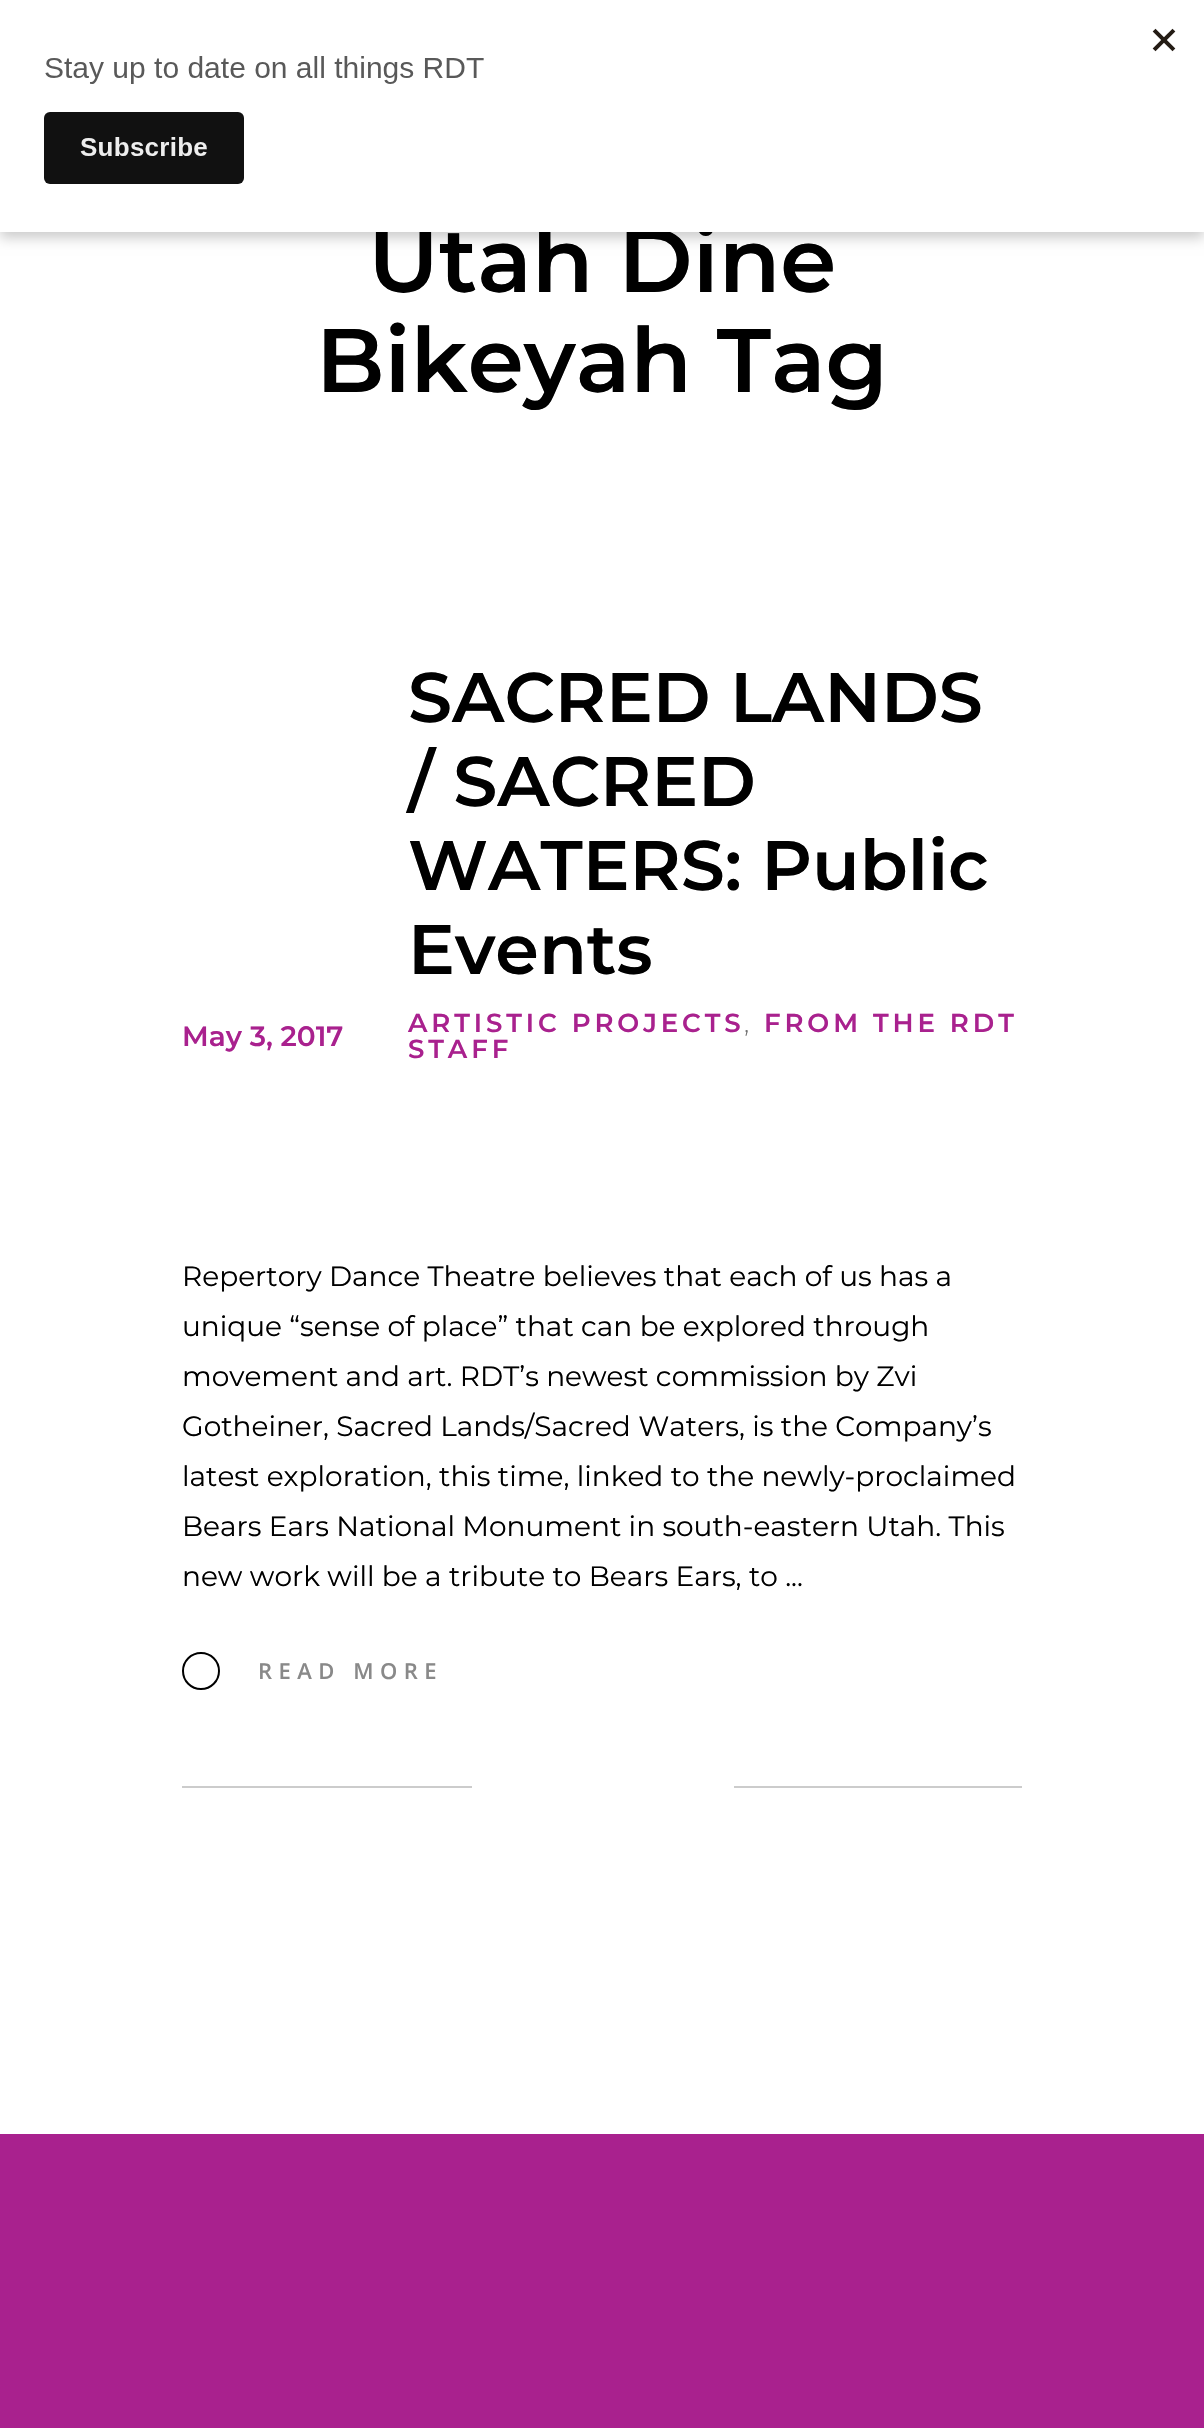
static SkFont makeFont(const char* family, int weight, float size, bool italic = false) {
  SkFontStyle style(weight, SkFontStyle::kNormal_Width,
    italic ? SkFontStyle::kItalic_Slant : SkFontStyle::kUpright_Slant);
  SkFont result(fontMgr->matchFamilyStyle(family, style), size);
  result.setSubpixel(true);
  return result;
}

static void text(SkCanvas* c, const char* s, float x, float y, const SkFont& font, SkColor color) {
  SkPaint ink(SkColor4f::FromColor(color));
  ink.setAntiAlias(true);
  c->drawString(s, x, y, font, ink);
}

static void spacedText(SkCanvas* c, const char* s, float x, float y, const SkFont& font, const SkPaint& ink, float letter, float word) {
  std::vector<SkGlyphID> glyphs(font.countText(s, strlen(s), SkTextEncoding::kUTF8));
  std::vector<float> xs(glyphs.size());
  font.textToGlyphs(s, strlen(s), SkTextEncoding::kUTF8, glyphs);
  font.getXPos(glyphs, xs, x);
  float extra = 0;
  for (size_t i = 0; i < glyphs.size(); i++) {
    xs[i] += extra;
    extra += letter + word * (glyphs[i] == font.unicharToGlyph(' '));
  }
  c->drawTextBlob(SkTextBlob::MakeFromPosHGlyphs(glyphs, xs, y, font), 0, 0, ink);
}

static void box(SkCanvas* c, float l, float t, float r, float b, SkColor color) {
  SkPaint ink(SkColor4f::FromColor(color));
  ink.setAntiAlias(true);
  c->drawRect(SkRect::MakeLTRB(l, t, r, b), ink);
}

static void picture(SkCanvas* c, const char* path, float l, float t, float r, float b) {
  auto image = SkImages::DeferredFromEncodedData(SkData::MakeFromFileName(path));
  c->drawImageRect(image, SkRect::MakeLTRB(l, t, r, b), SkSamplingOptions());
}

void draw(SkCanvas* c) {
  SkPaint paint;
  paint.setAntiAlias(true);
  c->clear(0xffffffff);
  paint.setColor(0x33000000);
  paint.setMaskFilter(SkMaskFilter::MakeBlur(kNormal_SkBlurStyle, 6));
  c->drawRect(SkRect::MakeLTRB(0, 6, 1204, 238), paint);
  paint.setMaskFilter(nullptr);
  SkFont face1 = makeFont("Montserrat", 600, 90);
  text(c, "Utah Dine", 368, 292, face1, 0xff000000);
  box(c, 0, 0, 1204, 232, 0xffffffff);
  picture(c, "img_01.png", 44, 28, 1176, 184);
  text(c, "Bikeyah Tag", 316, 392, face1, 0xff000000);
  SkFont face2 = makeFont("Montserrat", 600, 28);
  text(c, "May 3, 2017", 182, 1046, face2, 0xffa9218e);
  SkFont face3 = makeFont("Montserrat", 600, 70);
  text(c, "SACRED LANDS", 408, 722, face3, 0xff000000);
  text(c, "/ SACRED", 408, 806, face3, 0xff000000);
  text(c, "WATERS: Public", 408, 890, face3, 0xff000000);
  text(c, "Events", 408, 974, face3, 0xff000000);
  SkFont face4 = makeFont("Montserrat", 600, 26);
  paint.setColor(0xffa9218e);
  spacedText(c, "ARTISTIC PROJECTS", 408, 1032, face4, paint, 3.9f, 0);
  SkFont face5 = makeFont("Montserrat", 300, 26);
  paint.setColor(0xff707070);
  spacedText(c, ",", 744, 1032, face5, paint, 3.9f, 0);
  paint.setColor(0xffa9218e);
  spacedText(c, "FROM THE RDT", 764, 1032, face4, paint, 3.9f, 0);
  spacedText(c, "STAFF", 408, 1058, face4, paint, 3.9f, 0);
  SkFont face6 = makeFont("Montserrat", 400, 28);
  text(c, "Repertory Dance Theatre believes that each of us has a", 182, 1286, face6, 0xff000000);
  text(c, "unique “sense of place” that can be explored through", 182, 1336, face6, 0xff000000);
  text(c, "movement and art. RDT’s newest commission by Zvi", 182, 1386, face6, 0xff000000);
  text(c, "Gotheiner, Sacred Lands/Sacred Waters, is the Company’s", 182, 1436, face6, 0xff000000);
  text(c, "latest exploration, this time, linked to the newly-proclaimed", 182, 1486, face6, 0xff000000);
  text(c, "Bears Ears National Monument in south-eastern Utah. This", 182, 1536, face6, 0xff000000);
  text(c, "new work will be a tribute to Bears Ears, to ...", 182, 1586, face6, 0xff000000);
  paint.setStyle(SkPaint::kStroke_Style);
  paint.setStrokeWidth(2);
  paint.setColor(0xff000000);
  c->drawPath(SkPathBuilder().moveTo(201, 1653).cubicTo(211, 1653, 219, 1661, 219, 1671).cubicTo(219, 1681, 211, 1689, 201, 1689).cubicTo(191, 1689, 183, 1681, 183, 1671).cubicTo(183, 1661, 191, 1653, 201, 1653).detach(), paint);
  SkFont face7 = makeFont("Open Sans", 600, 22);
  paint.setStyle(SkPaint::kFill_Style);
  paint.setColor(0xff898989);
  spacedText(c, "READ MORE", 258, 1679, face7, paint, 6.5f, 0);
  box(c, 182, 1786, 472, 1788, 0xffcccccc);
  box(c, 734, 1786, 1022, 1788, 0xffcccccc);
  box(c, 0, 2134, 1204, 2428, 0xffa9218e);
}
